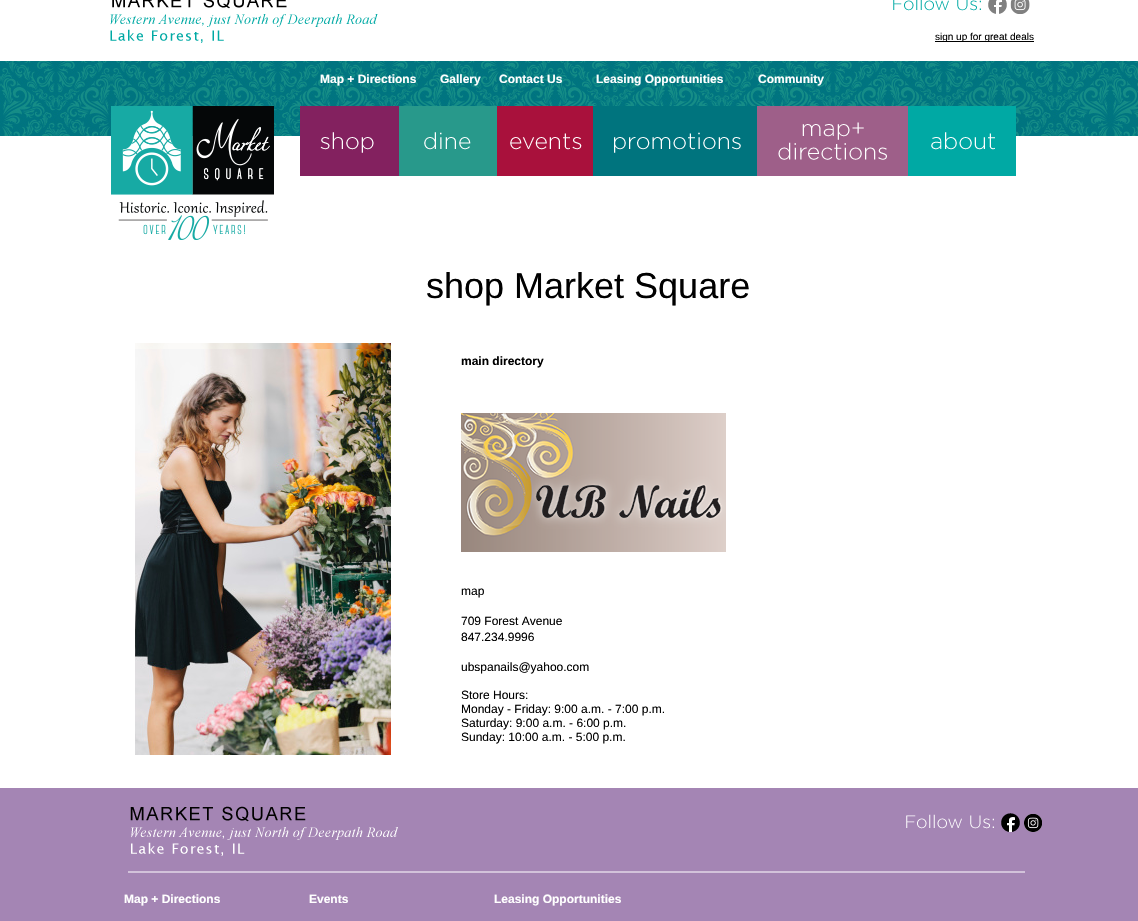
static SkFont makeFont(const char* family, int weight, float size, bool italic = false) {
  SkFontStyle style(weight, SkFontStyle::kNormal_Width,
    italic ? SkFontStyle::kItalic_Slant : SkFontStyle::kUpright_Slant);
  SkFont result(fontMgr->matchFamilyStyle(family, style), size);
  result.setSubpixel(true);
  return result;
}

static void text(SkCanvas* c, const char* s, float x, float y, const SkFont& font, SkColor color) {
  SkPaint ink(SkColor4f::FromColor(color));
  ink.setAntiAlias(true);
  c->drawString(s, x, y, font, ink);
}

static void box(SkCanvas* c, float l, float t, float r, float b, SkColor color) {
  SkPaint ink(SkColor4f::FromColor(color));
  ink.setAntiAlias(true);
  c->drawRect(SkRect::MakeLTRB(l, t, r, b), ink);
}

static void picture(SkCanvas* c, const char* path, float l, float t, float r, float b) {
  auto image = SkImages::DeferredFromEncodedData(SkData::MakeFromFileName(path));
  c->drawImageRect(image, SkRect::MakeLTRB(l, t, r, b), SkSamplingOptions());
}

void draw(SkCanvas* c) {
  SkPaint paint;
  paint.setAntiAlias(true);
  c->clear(0xffffffff);
  picture(c, "img_01.png", 110, 0, 378, 43);
  picture(c, "img_02.png", 893, 0, 1030, 14);
  box(c, 935, 41, 1034, 42, 0xff000000);
  SkFont face1 = makeFont("Liberation Sans", 400, 10);
  text(c, "sign up for great deals", 935, 40, face1, 0xff000000);
  picture(c, "img_03.png", 0, 61, 1138, 136);
  SkFont face2 = makeFont("Liberation Sans", 700, 12);
  text(c, "Map + Directions", 320, 83, face2, 0xffffffff);
  text(c, "Gallery", 440, 83, face2, 0xffffffff);
  text(c, "Contact Us", 499, 83, face2, 0xffffffff);
  text(c, "Leasing Opportunities", 596, 83, face2, 0xffffffff);
  text(c, "Community", 758, 83, face2, 0xffffffff);
  picture(c, "img_04.png", 111, 106, 274, 240);
  picture(c, "img_05.png", 300, 106, 399, 176);
  picture(c, "img_06.png", 399, 106, 497, 176);
  picture(c, "img_07.png", 497, 106, 593, 176);
  picture(c, "img_08.png", 593, 106, 757, 176);
  picture(c, "img_09.png", 757, 106, 908, 176);
  picture(c, "img_10.png", 908, 106, 1016, 176);
  SkFont face3 = makeFont("Liberation Sans", 400, 36);
  text(c, "shop Market Square", 426, 298, face3, 0xff000000);
  picture(c, "img_11.png", 135, 343, 391, 755);
  text(c, "main directory", 461, 365, face2, 0xff000000);
  picture(c, "img_12.png", 461, 413, 726, 552);
  SkFont face4 = makeFont("Liberation Sans", 400, 12);
  text(c, "map", 461, 595, face4, 0xff000000);
  text(c, "709 Forest Avenue", 461, 625, face4, 0xff000000);
  text(c, "847.234.9996", 461, 641, face4, 0xff000000);
  text(c, "ubspanails@yahoo.com", 461, 671, face4, 0xff000000);
  text(c, "Store Hours:", 461, 699, face4, 0xff000000);
  text(c, "Monday - Friday: 9:00 a.m. - 7:00 p.m.", 461, 713, face4, 0xff000000);
  text(c, "Saturday: 9:00 a.m. - 6:00 p.m.", 461, 727, face4, 0xff000000);
  text(c, "Sunday: 10:00 a.m. - 5:00 p.m.", 461, 741, face4, 0xff000000);
  box(c, 0, 788, 1138, 921, 0xffa485b4);
  picture(c, "img_13.png", 130, 806, 398, 856);
  picture(c, "img_14.png", 906, 813, 1042, 832);
  box(c, 128, 871, 1025, 873, 0xffd2c2da);
  text(c, "Map + Directions", 124, 903, face2, 0xffffffff);
  text(c, "Events", 309, 903, face2, 0xffffffff);
  text(c, "Leasing Opportunities", 494, 903, face2, 0xffffffff);
}
